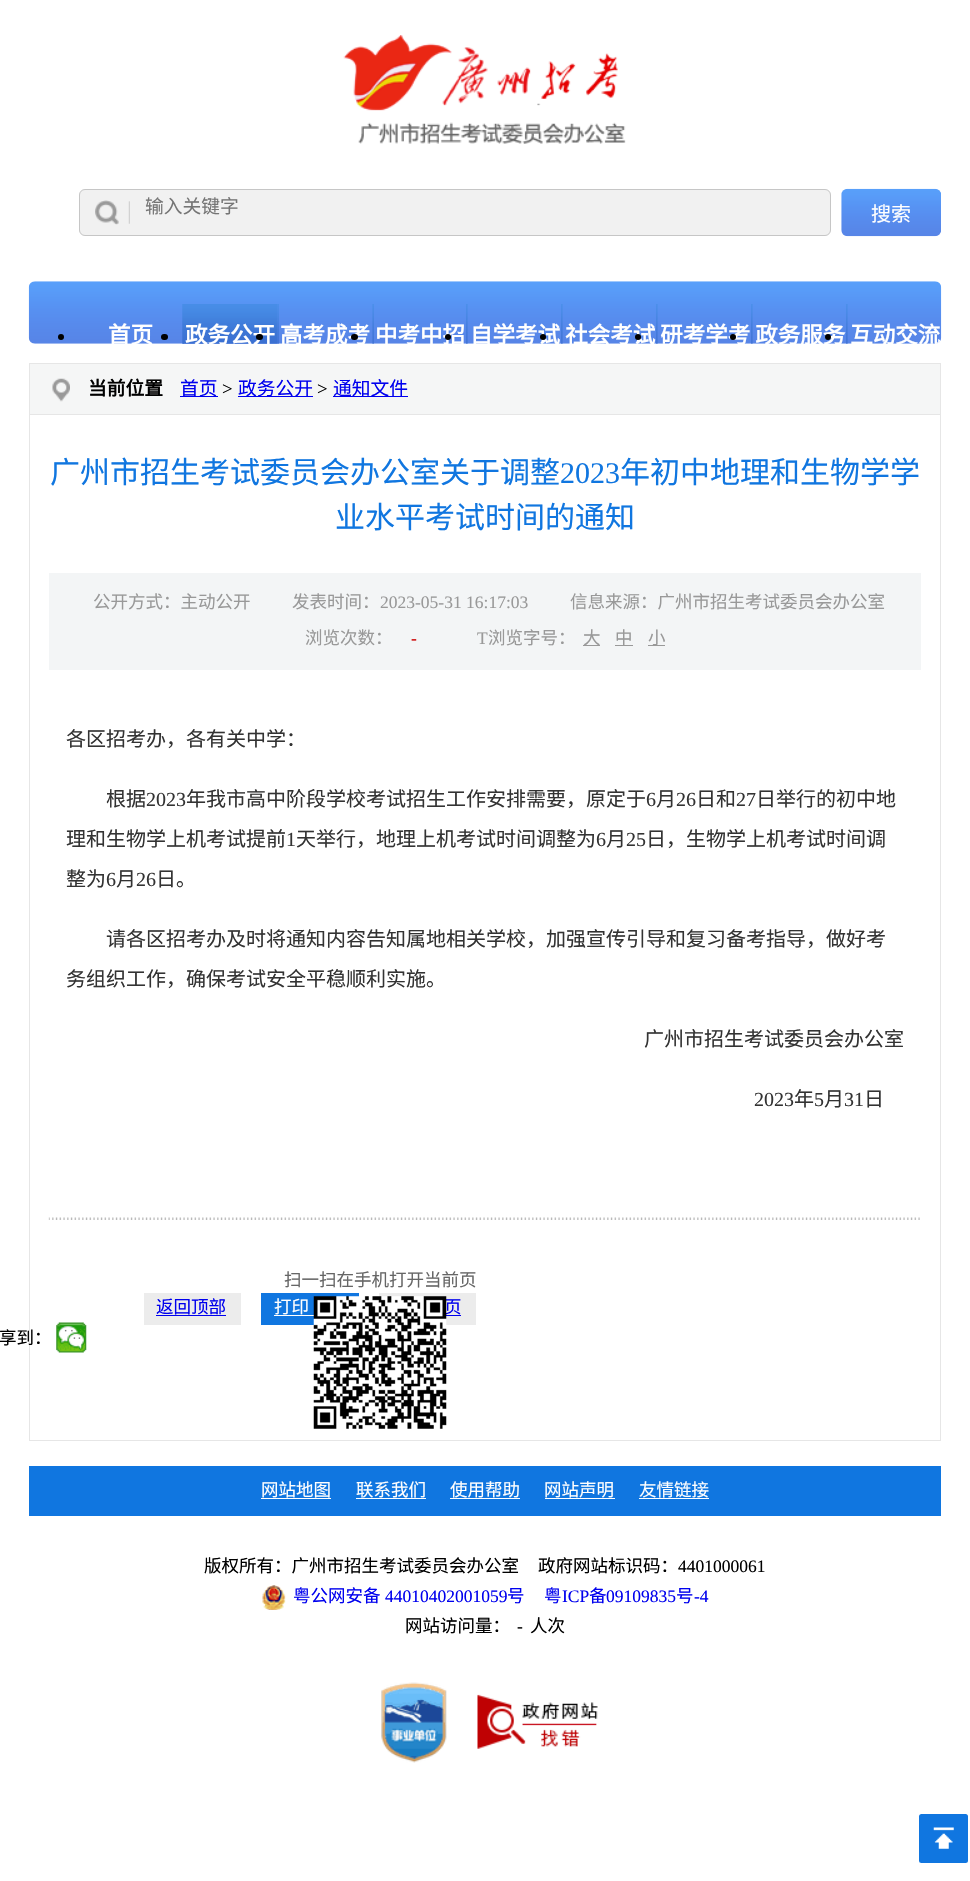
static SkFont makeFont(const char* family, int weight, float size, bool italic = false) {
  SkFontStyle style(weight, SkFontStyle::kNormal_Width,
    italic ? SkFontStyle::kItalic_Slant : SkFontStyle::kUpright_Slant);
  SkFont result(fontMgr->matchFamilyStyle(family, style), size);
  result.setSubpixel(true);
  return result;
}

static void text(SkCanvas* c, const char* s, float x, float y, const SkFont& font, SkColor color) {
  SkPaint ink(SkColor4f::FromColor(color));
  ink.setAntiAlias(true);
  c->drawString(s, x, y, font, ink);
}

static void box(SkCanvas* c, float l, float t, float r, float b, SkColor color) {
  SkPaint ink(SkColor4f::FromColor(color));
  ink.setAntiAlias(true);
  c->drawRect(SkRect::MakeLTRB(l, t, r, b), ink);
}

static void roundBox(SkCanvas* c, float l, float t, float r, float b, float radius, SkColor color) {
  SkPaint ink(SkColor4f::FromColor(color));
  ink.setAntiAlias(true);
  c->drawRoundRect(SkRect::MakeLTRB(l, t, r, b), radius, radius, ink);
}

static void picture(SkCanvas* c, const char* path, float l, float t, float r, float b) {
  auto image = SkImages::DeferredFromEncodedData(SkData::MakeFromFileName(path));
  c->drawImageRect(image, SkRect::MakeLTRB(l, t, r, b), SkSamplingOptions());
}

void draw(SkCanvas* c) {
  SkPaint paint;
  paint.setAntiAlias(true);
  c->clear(0xffffffff);
  picture(c, "img_01.png", 343, 35, 626, 144);
  roundBox(c, 79, 189, 831, 236, 6, 0xfff1f1f1);
  picture(c, "img_02.png", 95, 200, 130, 225);
  paint.setStyle(SkPaint::kStroke_Style);
  paint.setStrokeWidth(1);
  paint.setColor(0xffc6c6c6);
  c->drawRoundRect(SkRect::MakeLTRB(79.5f, 189.5f, 830.5f, 235.5f), 5.5f, 5.5f, paint);
  SkFont face1 = makeFont("Noto Sans CJK SC", 400, 18.75f);
  text(c, "输入关键字", 145, 213, face1, 0xff757575);
  picture(c, "img_03.png", 841, 188, 941, 237);
  SkFont face2 = makeFont("Noto Sans CJK SC", 400, 20);
  text(c, "搜索", 871, 221, face2, 0xffffffff);
  picture(c, "img_04.png", 28, 281, 942, 344);
  picture(c, "img_09.png", 182, 304, 184, 344);
  picture(c, "img_10.png", 182, 304, 278, 344);
  c->save();
  c->clipPath(SkPathBuilder().moveTo(35, 281).lineTo(935, 281).cubicTo(938.5f, 281, 941, 283.5f, 941, 287).lineTo(941, 338).cubicTo(941, 341.5f, 938.5f, 344, 935, 344).lineTo(35, 344).cubicTo(31.5f, 344, 29, 341.5f, 29, 338).lineTo(29, 287).cubicTo(29, 283.5f, 31.5f, 281, 35, 281).close().detach(), true);
  SkFont face3 = makeFont("Noto Sans CJK SC", 700, 22.5f);
  text(c, "政务公开 高考成考 中考中招 自学考试 社会考试 研考学考 政务服务 互动交流", 185, 343, face3, 0xffffffff);
  c->restore();
  picture(c, "img_05.png", 277, 304, 279, 344);
  roundBox(c, 256, 334, 263, 340, 3, 0xff000000);
  picture(c, "img_06.png", 372, 304, 374, 344);
  roundBox(c, 351, 334, 358, 340, 3, 0xff000000);
  picture(c, "img_07.png", 466, 304, 468, 344);
  paint.setStyle(SkPaint::kFill_Style);
  paint.setColor(0xff000000);
  c->drawCircle(448, 337, 3, paint);
  picture(c, "img_07.png", 561, 304, 563, 344);
  c->drawCircle(543, 337, 3, paint);
  picture(c, "img_07.png", 656, 304, 658, 344);
  c->drawCircle(638, 337, 3, paint);
  picture(c, "img_07.png", 751, 304, 753, 344);
  c->drawCircle(733, 337, 3, paint);
  picture(c, "img_08.png", 846, 304, 848, 344);
  c->drawCircle(828, 337, 3, paint);
  c->drawCircle(61, 337, 3, paint);
  c->save();
  c->clipPath(SkPathBuilder().moveTo(35, 281).lineTo(935, 281).cubicTo(938.5f, 281, 941, 283.5f, 941, 287).lineTo(941, 338).cubicTo(941, 341.5f, 938.5f, 344, 935, 344).lineTo(35, 344).cubicTo(31.5f, 344, 29, 341.5f, 29, 338).lineTo(29, 287).cubicTo(29, 283.5f, 31.5f, 281, 35, 281).close().detach(), true);
  text(c, "首页", 108, 343, face3, 0xffffffff);
  c->restore();
  roundBox(c, 161, 334, 168, 340, 3, 0xff000000);
  paint.setStyle(SkPaint::kStroke_Style);
  paint.setColor(0xffe6e6e6);
  c->drawRect(SkRect::MakeLTRB(29.5f, 363.5f, 940.5f, 1440.5f), paint);
  box(c, 30, 364, 940, 414, 0xfff5f6f6);
  box(c, 30, 414, 940, 415, 0xffe6e6e6);
  picture(c, "img_11.png", 52, 378, 70, 402);
  SkFont face4 = makeFont("Noto Sans CJK SC", 700, 18.75f);
  text(c, "当前位置", 88, 395, face4, 0xff000000);
  box(c, 180, 396, 218, 397, 0xff0000ee);
  text(c, "首页", 180, 395, face1, 0xff0000ee);
  SkFont face5 = makeFont("Liberation Serif", 400, 18.75f);
  text(c, ">", 222, 395, face5, 0xff000000);
  box(c, 238, 396, 313, 397, 0xff0000ee);
  text(c, "政务公开", 238, 395, face1, 0xff0000ee);
  text(c, ">", 317, 395, face5, 0xff000000);
  box(c, 333, 396, 408, 397, 0xff0000ee);
  text(c, "通知文件", 333, 395, face1, 0xff0000ee);
  SkFont face6 = makeFont("Noto Sans CJK SC", 400, 30);
  text(c, "广州市招生考试委员会办公室关于调整", 50, 483, face6, 0xff1076e0);
  SkFont face7 = makeFont("Liberation Serif", 400, 30);
  text(c, "2023", 560, 483, face7, 0xff1076e0);
  text(c, "年初中地理和生物学学", 620, 483, face6, 0xff1076e0);
  text(c, "业水平考试时间的通知", 335, 528, face6, 0xff1076e0);
  box(c, 49, 573, 921, 670, 0xfff3f5f6);
  SkFont face8 = makeFont("Noto Sans CJK SC", 400, 17.5f);
  text(c, "公开方式：主动公开", 93, 608, face8, 0xff999999);
  text(c, "发表时间：", 292, 608, face8, 0xff999999);
  SkFont face9 = makeFont("Liberation Serif", 400, 17.5f);
  text(c, "2023-05-31 16:17:03", 380, 608, face9, 0xff999999);
  text(c, "信息来源：广州市招生考试委员会办公室", 570, 608, face8, 0xff999999);
  text(c, "浏览次数：", 305, 644, face8, 0xff999999);
  text(c, "-", 411, 644, face9, 0xffcc0000);
  text(c, "T", 477, 644, face9, 0xff999999);
  text(c, "浏览字号：", 488, 644, face8, 0xff999999);
  box(c, 583, 645, 600, 646, 0xff999999);
  text(c, "大", 583, 644, face8, 0xff999999);
  box(c, 615, 645, 633, 646, 0xff999999);
  text(c, "中", 615, 644, face8, 0xff999999);
  box(c, 648, 645, 665, 646, 0xff999999);
  text(c, "小", 648, 644, face8, 0xff999999);
  text(c, "各区招考办，各有关中学：", 66, 746, face2, 0xff333333);
  text(c, "根据", 106, 806, face2, 0xff333333);
  SkFont face10 = makeFont("Liberation Serif", 400, 20);
  text(c, "2023", 146, 806, face10, 0xff333333);
  text(c, "年我市高中阶段学校考试招生工作安排需要，原定于", 186, 806, face2, 0xff333333);
  text(c, "6", 646, 806, face10, 0xff333333);
  text(c, "月", 656, 806, face2, 0xff333333);
  text(c, "26", 676, 806, face10, 0xff333333);
  text(c, "日和", 696, 806, face2, 0xff333333);
  text(c, "27", 736, 806, face10, 0xff333333);
  text(c, "日举行的初中地", 756, 806, face2, 0xff333333);
  text(c, "理和生物学上机考试提前", 66, 846, face2, 0xff333333);
  text(c, "1", 286, 846, face10, 0xff333333);
  text(c, "天举行，地理上机考试时间调整为", 296, 846, face2, 0xff333333);
  text(c, "6", 596, 846, face10, 0xff333333);
  text(c, "月", 606, 846, face2, 0xff333333);
  text(c, "25", 626, 846, face10, 0xff333333);
  text(c, "日，生物学上机考试时间调", 646, 846, face2, 0xff333333);
  text(c, "整为", 66, 886, face2, 0xff333333);
  text(c, "6", 106, 886, face10, 0xff333333);
  text(c, "月", 116, 886, face2, 0xff333333);
  text(c, "26", 136, 886, face10, 0xff333333);
  text(c, "日。", 156, 886, face2, 0xff333333);
  text(c, "请各区招考办及时将通知内容告知属地相关学校，加强宣传引导和复习备考指导，做好考", 106, 946, face2, 0xff333333);
  text(c, "务组织工作，确保考试安全平稳顺利实施。", 66, 986, face2, 0xff333333);
  text(c, "广州市招生考试委员会办公室", 644, 1046, face2, 0xff333333);
  text(c, "2023", 754, 1106, face10, 0xff333333);
  text(c, "年", 794, 1106, face2, 0xff333333);
  text(c, "5", 814, 1106, face10, 0xff333333);
  text(c, "月", 824, 1106, face2, 0xff333333);
  text(c, "31", 844, 1106, face10, 0xff333333);
  text(c, "日", 864, 1106, face2, 0xff333333);
  picture(c, "img_12.png", 48, 1217, 920, 1220);
  text(c, "扫一扫在手机打开当前页", 284, 1286, face8, 0xff666666);
  box(c, 261, 1293, 359, 1325, 0xff1076e0);
  box(c, 274, 1315, 314, 1316, 0xffffffff);
  box(c, 379, 1293, 476, 1325, 0xffececec);
  text(c, "页", 444, 1313, face8, 0xff0000ee);
  box(c, 446, 1315, 461, 1316, 0xff0000ee);
  picture(c, "img_13.png", 313, 1296, 447, 1429);
  text(c, "享到：", -1, 1344, face8, 0xff000000);
  picture(c, "img_14.png", 56, 1322, 87, 1353);
  box(c, 144, 1293, 241, 1325, 0xffececec);
  text(c, "返回顶部", 156, 1313, face8, 0xff0000ee);
  box(c, 156, 1315, 226, 1316, 0xff0000ee);
  text(c, "打印", 274, 1313, face8, 0xffffffff);
  box(c, 29, 1466, 941, 1516, 0xff1076e0);
  text(c, "网站地图", 261, 1496, face8, 0xffffffff);
  box(c, 261, 1498, 331, 1499, 0xffffffff);
  text(c, "联系我们", 356, 1496, face8, 0xffffffff);
  box(c, 356, 1498, 426, 1499, 0xffffffff);
  text(c, "使用帮助", 450, 1496, face8, 0xffffffff);
  box(c, 450, 1498, 520, 1499, 0xffffffff);
  text(c, "网站声明", 544, 1496, face8, 0xffffffff);
  box(c, 545, 1498, 615, 1499, 0xffffffff);
  text(c, "友情链接", 639, 1496, face8, 0xffffffff);
  box(c, 639, 1498, 709, 1499, 0xffffffff);
  text(c, "版权所有：广州市招生考试委员会办公室", 204, 1572, face8, 0xff000000);
  text(c, "政府网站标识码：", 538, 1572, face8, 0xff000000);
  text(c, "4401000061", 678, 1572, face9, 0xff000000);
  picture(c, "img_15.png", 262, 1585, 286, 1610);
  text(c, "粤公网安备", 293, 1602, face8, 0xff0000ee);
  text(c, "44010402001059", 385, 1602, face9, 0xff0000ee);
  text(c, "号", 507, 1602, face8, 0xff0000ee);
  text(c, "粤", 544, 1602, face8, 0xff0000ee);
  text(c, "ICP", 562, 1602, face9, 0xff0000ee);
  text(c, "备", 589, 1602, face8, 0xff0000ee);
  text(c, "09109835", 606, 1602, face9, 0xff0000ee);
  text(c, "号", 676, 1602, face8, 0xff0000ee);
  text(c, "-4", 694, 1602, face9, 0xff0000ee);
  text(c, "网站访问量：", 405, 1632, face8, 0xff000000);
  text(c, "-", 517, 1632, face9, 0xff000000);
  text(c, "人次", 530, 1632, face8, 0xff000000);
  picture(c, "img_16.png", 381, 1682, 447, 1763);
  picture(c, "img_17.png", 477, 1694, 598, 1749);
  roundBox(c, 919, 1814, 968, 1863, 2.5f, 0xff1076e0);
  picture(c, "img_18.png", 933, 1827, 954, 1849);
}
